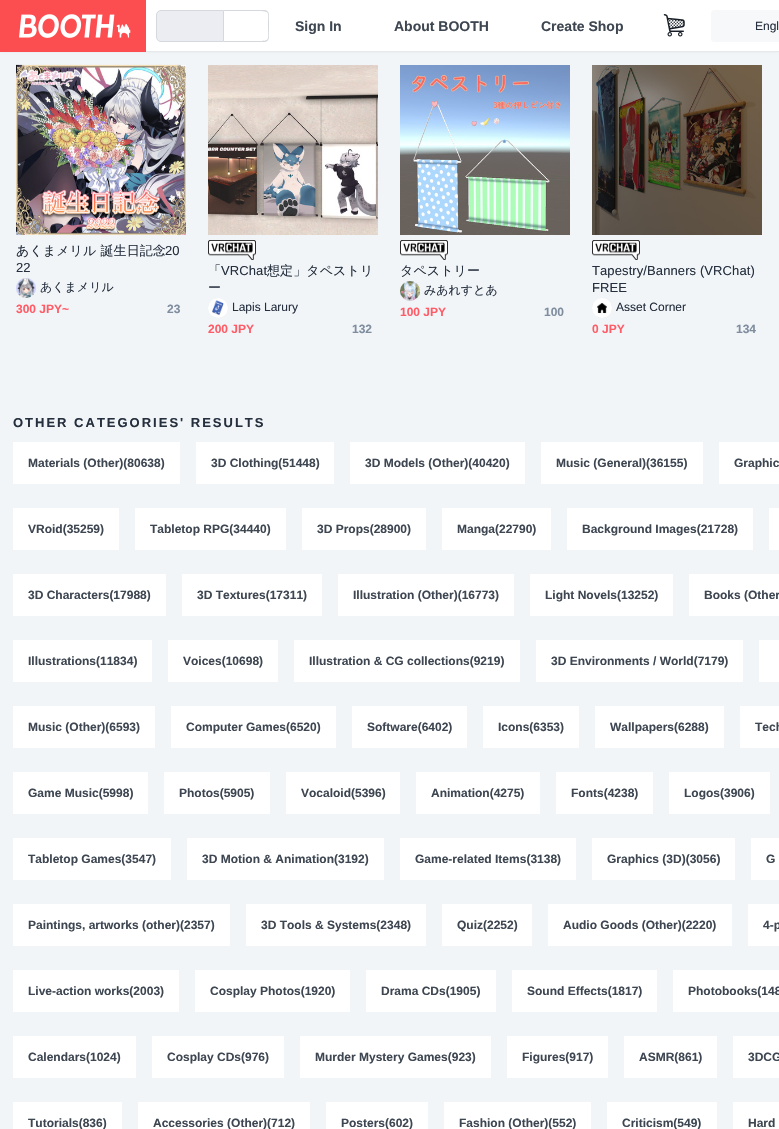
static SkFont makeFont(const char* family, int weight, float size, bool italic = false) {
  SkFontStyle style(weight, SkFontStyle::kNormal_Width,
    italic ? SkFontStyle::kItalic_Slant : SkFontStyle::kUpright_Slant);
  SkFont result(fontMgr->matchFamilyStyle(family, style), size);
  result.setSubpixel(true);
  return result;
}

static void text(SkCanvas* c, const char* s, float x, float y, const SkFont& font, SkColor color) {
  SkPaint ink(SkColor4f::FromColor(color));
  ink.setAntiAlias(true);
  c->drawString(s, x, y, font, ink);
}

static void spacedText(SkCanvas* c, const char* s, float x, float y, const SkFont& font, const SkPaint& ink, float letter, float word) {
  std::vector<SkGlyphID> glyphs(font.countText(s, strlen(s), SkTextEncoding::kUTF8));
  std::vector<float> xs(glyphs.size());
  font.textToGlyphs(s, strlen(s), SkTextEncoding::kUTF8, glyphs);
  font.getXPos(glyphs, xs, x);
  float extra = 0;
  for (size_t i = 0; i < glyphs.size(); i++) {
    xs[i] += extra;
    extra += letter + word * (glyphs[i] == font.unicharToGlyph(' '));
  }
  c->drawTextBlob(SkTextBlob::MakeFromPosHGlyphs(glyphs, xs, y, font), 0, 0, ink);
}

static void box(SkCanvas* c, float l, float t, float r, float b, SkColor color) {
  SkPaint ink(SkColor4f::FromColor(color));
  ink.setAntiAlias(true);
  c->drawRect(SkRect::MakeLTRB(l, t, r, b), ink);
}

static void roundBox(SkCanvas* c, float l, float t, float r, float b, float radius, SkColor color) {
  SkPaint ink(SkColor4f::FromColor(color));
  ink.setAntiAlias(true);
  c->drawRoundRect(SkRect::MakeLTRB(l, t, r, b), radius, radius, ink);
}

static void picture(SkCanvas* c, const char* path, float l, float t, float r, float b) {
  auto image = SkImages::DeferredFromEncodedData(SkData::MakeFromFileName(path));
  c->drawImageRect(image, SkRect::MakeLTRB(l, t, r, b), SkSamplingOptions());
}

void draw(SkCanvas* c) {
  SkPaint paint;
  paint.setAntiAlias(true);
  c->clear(0xfff1f5f8);
  paint.setColor(0xffe6e8eb);
  paint.setMaskFilter(SkMaskFilter::MakeBlur(kNormal_SkBlurStyle, 1));
  c->drawRect(SkRect::MakeLTRB(0, 0, 779, 52), paint);
  paint.setMaskFilter(nullptr);
  box(c, 146, 0, 779, 51, 0xffffffff);
  box(c, 146, 51, 779, 52, 0xffe6e8eb);
  picture(c, "img_01.png", 0, 0, 146, 52);
  paint.setColor(0xffebedf2);
  c->drawPath(SkPathBuilder().moveTo(161, 10.5f).lineTo(223.5f, 10.5f).lineTo(223.5f, 41.5f).lineTo(161, 41.5f).cubicTo(158.5f, 41.5f, 156.5f, 39.5f, 156.5f, 37).lineTo(156.5f, 15).cubicTo(156.5f, 12.5f, 158.5f, 10.5f, 161, 10.5f).close().detach(), paint);
  paint.setStyle(SkPaint::kStroke_Style);
  paint.setStrokeWidth(1);
  paint.setColor(0xffd5d9de);
  c->drawPath(SkPathBuilder().moveTo(161, 10.5f).lineTo(223.5f, 10.5f).lineTo(223.5f, 41.5f).lineTo(161, 41.5f).cubicTo(158.5f, 41.5f, 156.5f, 39.5f, 156.5f, 37).lineTo(156.5f, 15).cubicTo(156.5f, 12.5f, 158.5f, 10.5f, 161, 10.5f).close().detach(), paint);
  paint.setStyle(SkPaint::kFill_Style);
  c->drawPath(SkPathBuilder(SkPathFillType::kEvenOdd).moveTo(224, 10).lineTo(264, 10).cubicTo(267, 10, 269, 12, 269, 15).lineTo(269, 37).cubicTo(269, 40, 267, 42, 264, 42).lineTo(224, 42).close().moveTo(224, 11).lineTo(257, 11).cubicTo(271, 11, 268, 12, 268, 26).cubicTo(268, 40, 271, 41, 257, 41).lineTo(224, 41).close().detach(), paint);
  SkFont face1 = makeFont("Liberation Sans", 700, 14);
  text(c, "Sign In", 295, 31, face1, 0xff3d4651);
  text(c, "About BOOTH", 394, 31, face1, 0xff3d4651);
  text(c, "Create Shop", 541, 31, face1, 0xff3d4651);
  picture(c, "img_02.png", 663, 14, 685, 37);
  roundBox(c, 711, 10, 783, 42, 4, 0xfff7f8fa);
  SkFont face2 = makeFont("Liberation Sans", 400, 12);
  text(c, "Engl", 755, 30, face2, 0xff252f3d);
  picture(c, "img_03.png", 16, 64, 186, 235);
  SkFont face3 = makeFont("WenQuanYi Zen Hei", 500, 13);
  paint.setColor(0xff252f3d);
  spacedText(c, "あくまメリル 誕生日記念", 16, 255, face3, paint, 0.1f, 0);
  SkFont face4 = makeFont("Liberation Sans", 400, 13);
  spacedText(c, "20", 165, 255, face4, paint, 0.1f, 0);
  spacedText(c, "22", 16, 272, face4, paint, 0.1f, 0);
  paint.setStyle(SkPaint::kStroke_Style);
  paint.setColor(0xffe5e9ec);
  c->drawCircle(26, 288, 9.5f, paint);
  picture(c, "img_04.png", 16, 278, 36, 298);
  SkFont face5 = makeFont("WenQuanYi Zen Hei", 500, 12);
  text(c, "あくまメリル", 40, 291, face5, 0xff252f3d);
  SkFont face6 = makeFont("Liberation Sans", 700, 12);
  text(c, "300 JPY~", 16, 313, face6, 0xffff5c67);
  text(c, "23", 167, 313, face6, 0xff7f8d9f);
  picture(c, "img_05.png", 208, 65, 378, 235);
  picture(c, "img_06.png", 208, 240, 256, 260);
  paint.setStyle(SkPaint::kFill_Style);
  paint.setColor(0xff252f3d);
  spacedText(c, "「", 208, 275, face3, paint, 0.1f, 0);
  spacedText(c, "VRChat", 221, 275, face4, paint, 0.1f, 0);
  spacedText(c, "想定」タペストリ", 267, 275, face3, paint, 0.1f, 0);
  spacedText(c, "ー", 208, 292, face3, paint, 0.1f, 0);
  paint.setStyle(SkPaint::kStroke_Style);
  paint.setColor(0xffe5e9ec);
  c->drawCircle(218, 308, 9.5f, paint);
  picture(c, "img_07.png", 208, 298, 228, 318);
  text(c, "Lapis Larury", 232, 311, face2, 0xff252f3d);
  text(c, "200 JPY", 208, 333, face6, 0xffff5c67);
  text(c, "132", 352, 333, face6, 0xff7f8d9f);
  picture(c, "img_08.png", 400, 65, 570, 235);
  picture(c, "img_06.png", 400, 240, 448, 260);
  paint.setStyle(SkPaint::kFill_Style);
  paint.setColor(0xff252f3d);
  spacedText(c, "タペストリー", 400, 275, face3, paint, 0.1f, 0);
  paint.setStyle(SkPaint::kStroke_Style);
  paint.setColor(0xffe5e9ec);
  c->drawCircle(410, 291, 9.5f, paint);
  picture(c, "img_09.png", 400, 281, 420, 301);
  text(c, "みあれすとあ", 424, 294, face5, 0xff252f3d);
  text(c, "100 JPY", 400, 316, face6, 0xffff5c67);
  text(c, "100", 544, 316, face6, 0xff7f8d9f);
  picture(c, "img_10.png", 592, 65, 762, 235);
  picture(c, "img_06.png", 592, 240, 640, 260);
  paint.setStyle(SkPaint::kFill_Style);
  paint.setColor(0xff252f3d);
  spacedText(c, "Tapestry/Banners (VRChat)", 592, 275, face4, paint, 0.1f, 0);
  spacedText(c, "FREE", 592, 292, face4, paint, 0.1f, 0);
  paint.setStyle(SkPaint::kStroke_Style);
  paint.setColor(0xffe5e9ec);
  c->drawCircle(602, 308, 9.5f, paint);
  picture(c, "img_11.png", 592, 298, 612, 318);
  text(c, "Asset Corner", 616, 311, face2, 0xff252f3d);
  text(c, "0 JPY", 592, 333, face6, 0xffff5c67);
  text(c, "134", 736, 333, face6, 0xff7f8d9f);
  SkFont face7 = makeFont("Liberation Sans", 700, 13);
  paint.setStyle(SkPaint::kFill_Style);
  paint.setColor(0xff252f3d);
  spacedText(c, "OTHER CATEGORIES' RESULTS", 13, 427, face7, paint, 2, 0);
  box(c, 13, 442, 180, 484, 0xffffffff);
  text(c, "Materials (Other)(80638)", 28, 467, face6, 0xff3d4651);
  box(c, 196, 442, 334, 484, 0xffffffff);
  text(c, "3D Clothing(51448)", 211, 467, face6, 0xff3d4651);
  box(c, 350, 442, 525, 484, 0xffffffff);
  text(c, "3D Models (Other)(40420)", 365, 467, face6, 0xff3d4651);
  box(c, 541, 442, 703, 484, 0xffffffff);
  text(c, "Music (General)(36155)", 556, 467, face6, 0xff3d4651);
  box(c, 719, 442, 779, 484, 0xffffffff);
  text(c, "Graphic", 734, 467, face6, 0xff3d4651);
  box(c, 13, 508, 119, 550, 0xffffffff);
  text(c, "VRoid(35259)", 28, 533, face6, 0xff3d4651);
  box(c, 135, 508, 286, 550, 0xffffffff);
  text(c, "Tabletop RPG(34440)", 150, 533, face6, 0xff3d4651);
  box(c, 302, 508, 426, 550, 0xffffffff);
  text(c, "3D Props(28900)", 317, 533, face6, 0xff3d4651);
  box(c, 442, 508, 551, 550, 0xffffffff);
  text(c, "Manga(22790)", 457, 533, face6, 0xff3d4651);
  box(c, 567, 508, 753, 550, 0xffffffff);
  text(c, "Background Images(21728)", 582, 533, face6, 0xff3d4651);
  box(c, 769, 508, 779, 550, 0xffffffff);
  box(c, 13, 574, 166, 616, 0xffffffff);
  text(c, "3D Characters(17988)", 28, 599, face6, 0xff3d4651);
  box(c, 182, 574, 322, 616, 0xffffffff);
  text(c, "3D Textures(17311)", 197, 599, face6, 0xff3d4651);
  box(c, 338, 574, 514, 616, 0xffffffff);
  text(c, "Illustration (Other)(16773)", 353, 599, face6, 0xff3d4651);
  box(c, 530, 574, 673, 616, 0xffffffff);
  text(c, "Light Novels(13252)", 545, 599, face6, 0xff3d4651);
  box(c, 689, 574, 779, 616, 0xffffffff);
  text(c, "Books (Other", 704, 599, face6, 0xff3d4651);
  box(c, 13, 640, 152, 682, 0xffffffff);
  text(c, "Illustrations(11834)", 28, 665, face6, 0xff3d4651);
  box(c, 168, 640, 278, 682, 0xffffffff);
  text(c, "Voices(10698)", 183, 665, face6, 0xff3d4651);
  box(c, 294, 640, 520, 682, 0xffffffff);
  text(c, "Illustration & CG collections(9219)", 309, 665, face6, 0xff3d4651);
  box(c, 536, 640, 743, 682, 0xffffffff);
  text(c, "3D Environments / World(7179)", 551, 665, face6, 0xff3d4651);
  box(c, 759, 640, 779, 682, 0xffffffff);
  box(c, 13, 706, 155, 748, 0xffffffff);
  text(c, "Music (Other)(6593)", 28, 731, face6, 0xff3d4651);
  box(c, 171, 706, 336, 748, 0xffffffff);
  text(c, "Computer Games(6520)", 186, 731, face6, 0xff3d4651);
  box(c, 352, 706, 467, 748, 0xffffffff);
  text(c, "Software(6402)", 367, 731, face6, 0xff3d4651);
  box(c, 483, 706, 579, 748, 0xffffffff);
  text(c, "Icons(6353)", 498, 731, face6, 0xff3d4651);
  box(c, 595, 706, 724, 748, 0xffffffff);
  text(c, "Wallpapers(6288)", 610, 731, face6, 0xff3d4651);
  box(c, 740, 706, 779, 748, 0xffffffff);
  text(c, "Tech", 755, 731, face6, 0xff3d4651);
  box(c, 13, 772, 148, 814, 0xffffffff);
  text(c, "Game Music(5998)", 28, 797, face6, 0xff3d4651);
  box(c, 164, 772, 270, 814, 0xffffffff);
  text(c, "Photos(5905)", 179, 797, face6, 0xff3d4651);
  box(c, 286, 772, 400, 814, 0xffffffff);
  text(c, "Vocaloid(5396)", 301, 797, face6, 0xff3d4651);
  box(c, 416, 772, 540, 814, 0xffffffff);
  text(c, "Animation(4275)", 431, 797, face6, 0xff3d4651);
  box(c, 556, 772, 653, 814, 0xffffffff);
  text(c, "Fonts(4238)", 571, 797, face6, 0xff3d4651);
  box(c, 669, 772, 770, 814, 0xffffffff);
  text(c, "Logos(3906)", 684, 797, face6, 0xff3d4651);
  box(c, 13, 838, 171, 880, 0xffffffff);
  text(c, "Tabletop Games(3547)", 28, 863, face6, 0xff3d4651);
  box(c, 187, 838, 384, 880, 0xffffffff);
  text(c, "3D Motion & Animation(3192)", 202, 863, face6, 0xff3d4651);
  box(c, 400, 838, 576, 880, 0xffffffff);
  text(c, "Game-related Items(3138)", 415, 863, face6, 0xff3d4651);
  box(c, 592, 838, 735, 880, 0xffffffff);
  text(c, "Graphics (3D)(3056)", 607, 863, face6, 0xff3d4651);
  box(c, 751, 838, 779, 880, 0xffffffff);
  text(c, "G", 766, 863, face6, 0xff3d4651);
  box(c, 13, 904, 230, 946, 0xffffffff);
  text(c, "Paintings, artworks (other)(2357)", 28, 929, face6, 0xff3d4651);
  box(c, 246, 904, 426, 946, 0xffffffff);
  text(c, "3D Tools & Systems(2348)", 261, 929, face6, 0xff3d4651);
  box(c, 442, 904, 532, 946, 0xffffffff);
  text(c, "Quiz(2252)", 457, 929, face6, 0xff3d4651);
  box(c, 548, 904, 732, 946, 0xffffffff);
  text(c, "Audio Goods (Other)(2220)", 563, 929, face6, 0xff3d4651);
  box(c, 748, 904, 779, 946, 0xffffffff);
  text(c, "4-p", 763, 929, face6, 0xff3d4651);
  box(c, 13, 970, 179, 1012, 0xffffffff);
  text(c, "Live-action works(2003)", 28, 995, face6, 0xff3d4651);
  box(c, 195, 970, 350, 1012, 0xffffffff);
  text(c, "Cosplay Photos(1920)", 210, 995, face6, 0xff3d4651);
  box(c, 366, 970, 496, 1012, 0xffffffff);
  text(c, "Drama CDs(1905)", 381, 995, face6, 0xff3d4651);
  box(c, 512, 970, 657, 1012, 0xffffffff);
  text(c, "Sound Effects(1817)", 527, 995, face6, 0xff3d4651);
  box(c, 673, 970, 779, 1012, 0xffffffff);
  text(c, "Photobooks(148", 688, 995, face6, 0xff3d4651);
  box(c, 13, 1036, 136, 1078, 0xffffffff);
  text(c, "Calendars(1024)", 28, 1061, face6, 0xff3d4651);
  box(c, 152, 1036, 284, 1078, 0xffffffff);
  text(c, "Cosplay CDs(976)", 167, 1061, face6, 0xff3d4651);
  box(c, 300, 1036, 491, 1078, 0xffffffff);
  text(c, "Murder Mystery Games(923)", 315, 1061, face6, 0xff3d4651);
  box(c, 507, 1036, 608, 1078, 0xffffffff);
  text(c, "Figures(917)", 522, 1061, face6, 0xff3d4651);
  box(c, 624, 1036, 717, 1078, 0xffffffff);
  text(c, "ASMR(861)", 639, 1061, face6, 0xff3d4651);
  box(c, 733, 1036, 779, 1078, 0xffffffff);
  text(c, "3DCG", 748, 1061, face6, 0xff3d4651);
  box(c, 13, 1102, 122, 1129, 0xffffffff);
  text(c, "Tutorials(836)", 28, 1127, face6, 0xff3d4651);
  box(c, 138, 1102, 310, 1129, 0xffffffff);
  text(c, "Accessories (Other)(712)", 153, 1127, face6, 0xff3d4651);
  box(c, 326, 1102, 428, 1129, 0xffffffff);
  text(c, "Posters(602)", 341, 1127, face6, 0xff3d4651);
  box(c, 444, 1102, 591, 1129, 0xffffffff);
  text(c, "Fashion (Other)(552)", 459, 1127, face6, 0xff3d4651);
  box(c, 607, 1102, 717, 1129, 0xffffffff);
  text(c, "Criticism(549)", 622, 1127, face6, 0xff3d4651);
  box(c, 733, 1102, 779, 1129, 0xffffffff);
  text(c, "Hard", 748, 1127, face6, 0xff3d4651);
}
